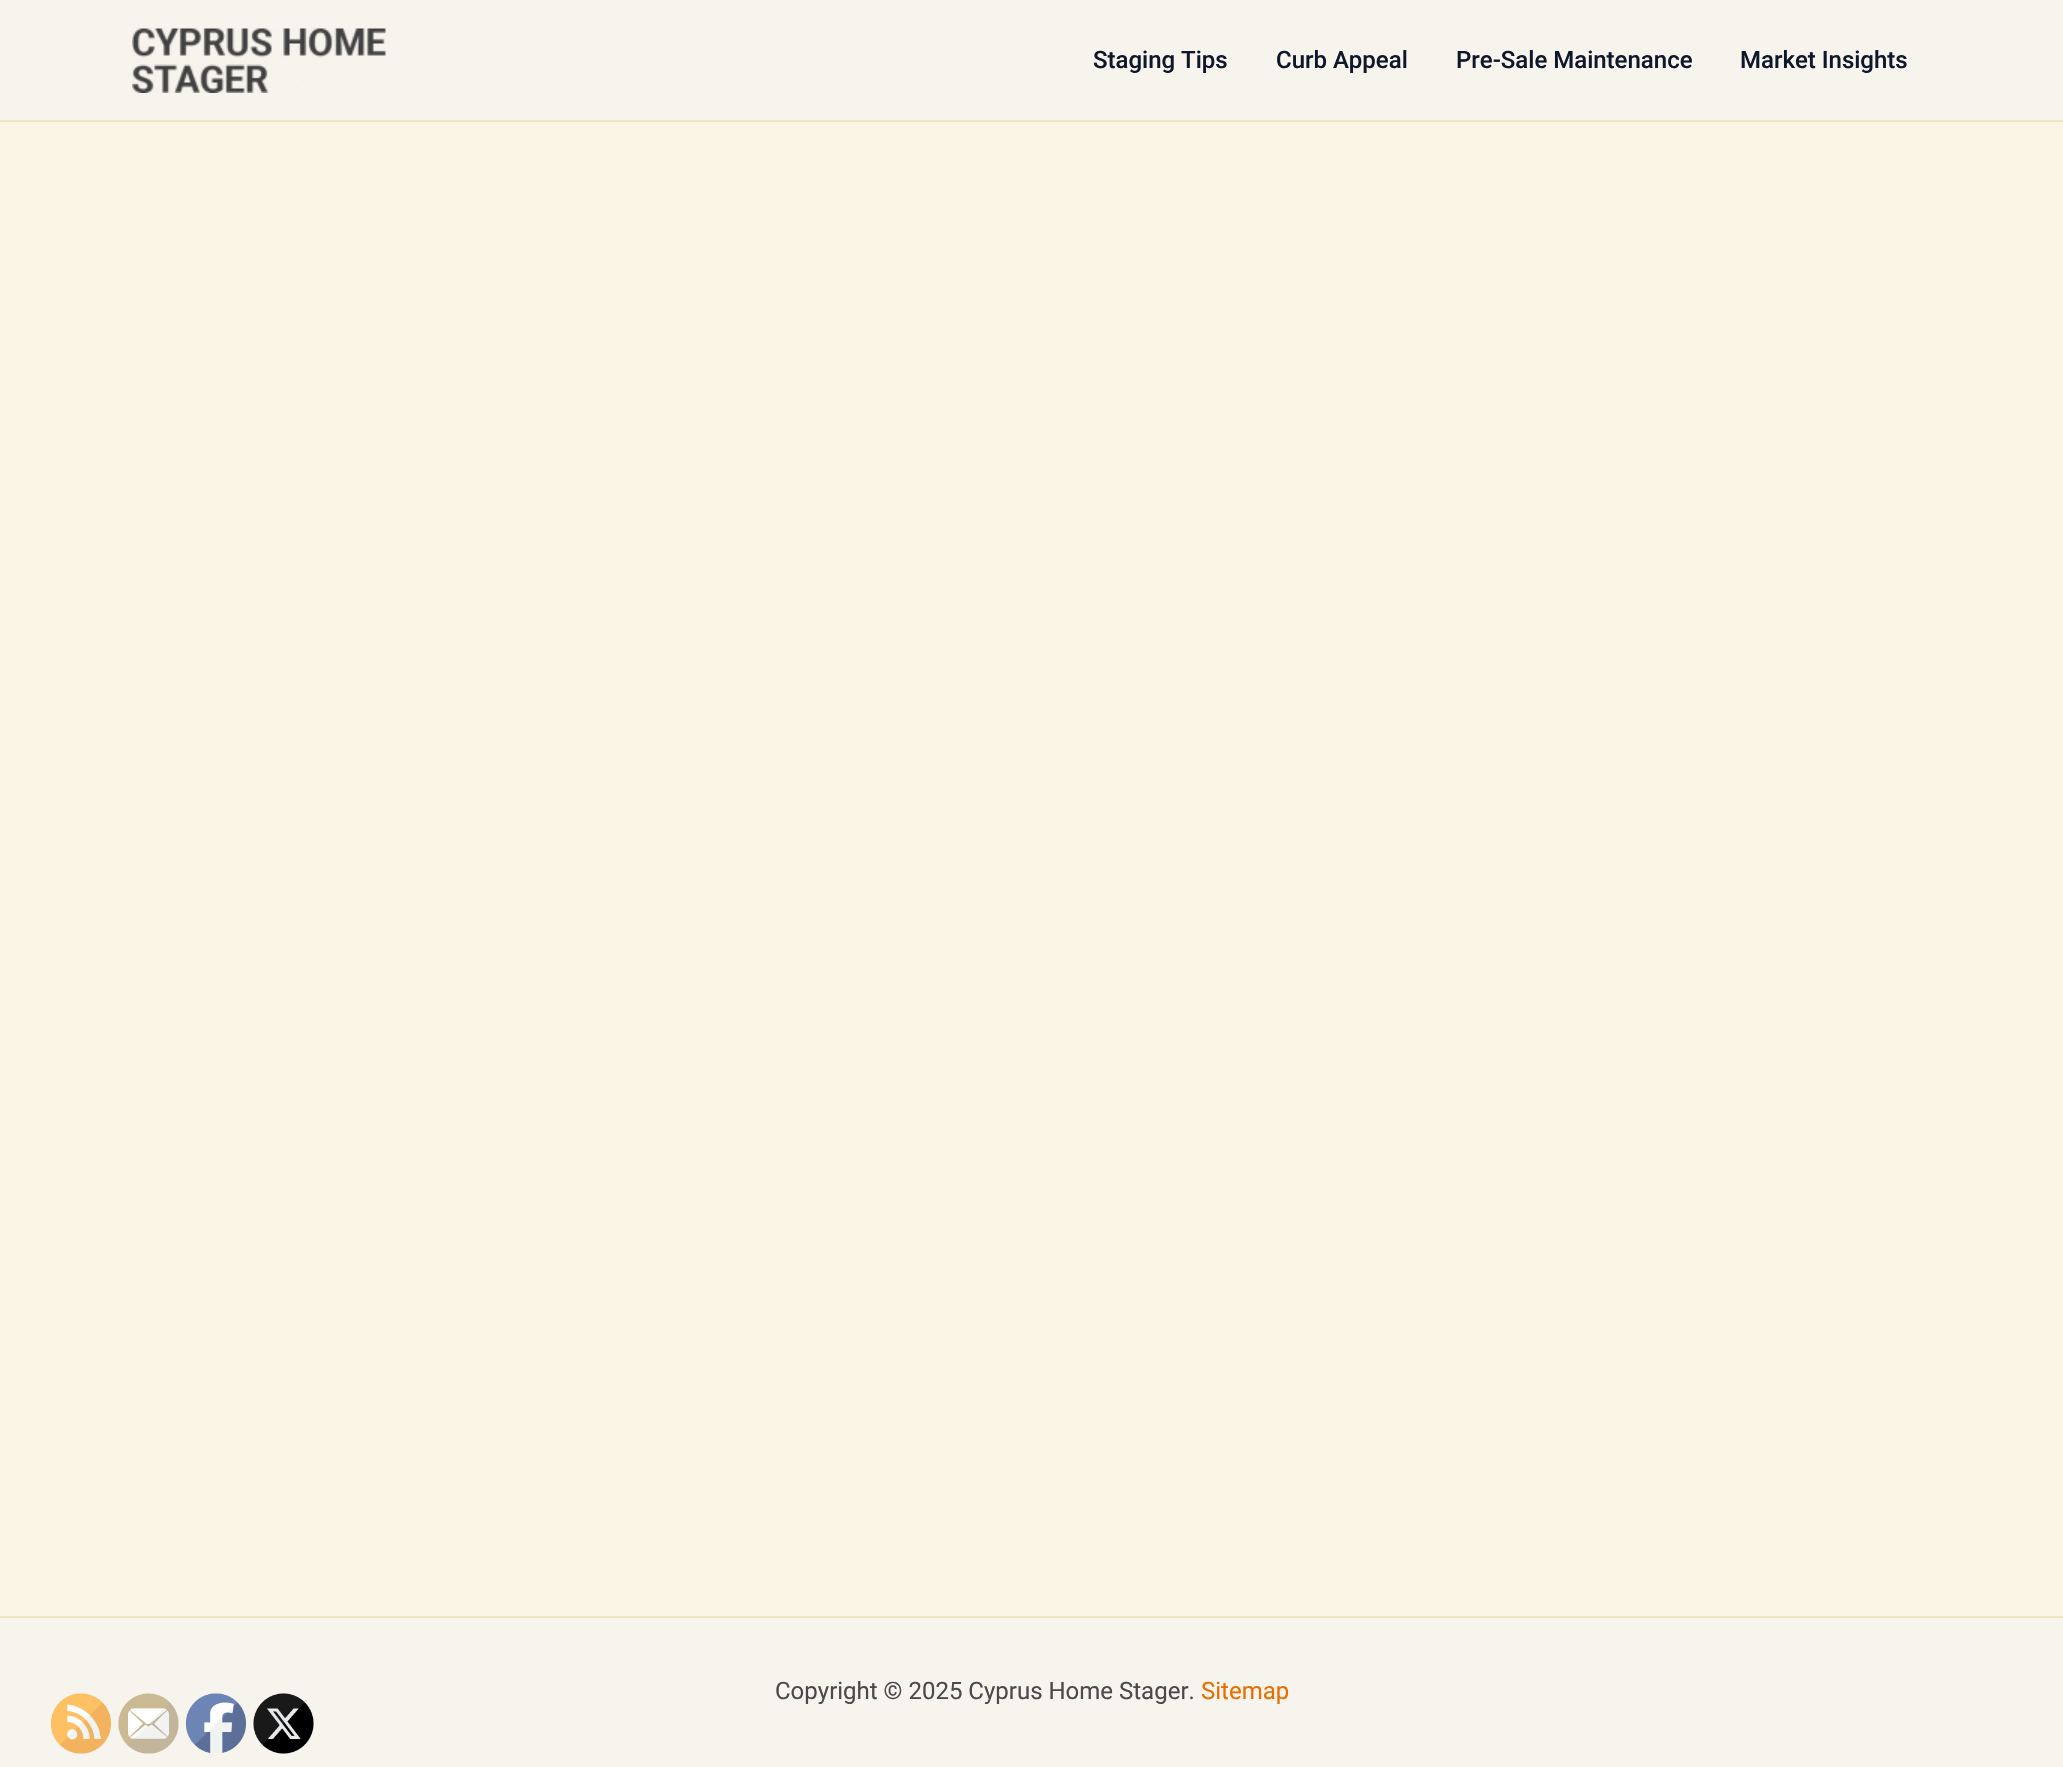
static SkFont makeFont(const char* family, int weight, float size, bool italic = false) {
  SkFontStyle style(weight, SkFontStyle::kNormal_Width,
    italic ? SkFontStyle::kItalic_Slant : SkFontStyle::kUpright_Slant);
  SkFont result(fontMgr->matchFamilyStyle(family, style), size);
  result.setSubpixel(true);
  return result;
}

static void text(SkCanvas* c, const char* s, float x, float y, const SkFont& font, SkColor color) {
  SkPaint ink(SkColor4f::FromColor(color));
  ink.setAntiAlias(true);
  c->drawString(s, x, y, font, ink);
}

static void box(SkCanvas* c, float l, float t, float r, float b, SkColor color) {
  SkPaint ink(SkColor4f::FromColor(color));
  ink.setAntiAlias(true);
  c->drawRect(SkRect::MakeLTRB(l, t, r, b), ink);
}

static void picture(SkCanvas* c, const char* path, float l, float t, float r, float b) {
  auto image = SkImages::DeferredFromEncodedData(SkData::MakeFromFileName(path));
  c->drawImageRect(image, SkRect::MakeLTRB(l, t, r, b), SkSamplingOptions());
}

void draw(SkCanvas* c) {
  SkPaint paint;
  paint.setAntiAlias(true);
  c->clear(0xfffaf5e5);
  box(c, 0, 0, 2063, 120, 0xfff7f4ed);
  box(c, 0, 120, 2063, 122, 0xfff0e6c5);
  picture(c, "img_01.png", 132, 28, 386, 93);
  SkFont face1 = makeFont("Roboto", 500, 24);
  text(c, "Staging Tips", 1093, 68, face1, 0xff0f172a);
  text(c, "Curb Appeal", 1276, 68, face1, 0xff0f172a);
  text(c, "Pre-Sale Maintenance", 1456, 68, face1, 0xff0f172a);
  text(c, "Market Insights", 1740, 68, face1, 0xff0f172a);
  box(c, 0, 1618, 2063, 1767, 0xfff7f4ed);
  box(c, 0, 1616, 2063, 1618, 0xfff0e6c5);
  SkFont face2 = makeFont("Roboto", 400, 24);
  text(c, "Copyright © 2025 Cyprus Home Stager.", 775, 1699, face2, 0xff4a4a4a);
  text(c, "Sitemap", 1201, 1699, face2, 0xffe66f00);
  picture(c, "img_02.png", 51, 1693, 111, 1754);
  picture(c, "img_03.png", 118, 1693, 179, 1754);
  picture(c, "img_04.png", 186, 1693, 246, 1753);
  picture(c, "img_05.png", 253, 1693, 314, 1754);
}
